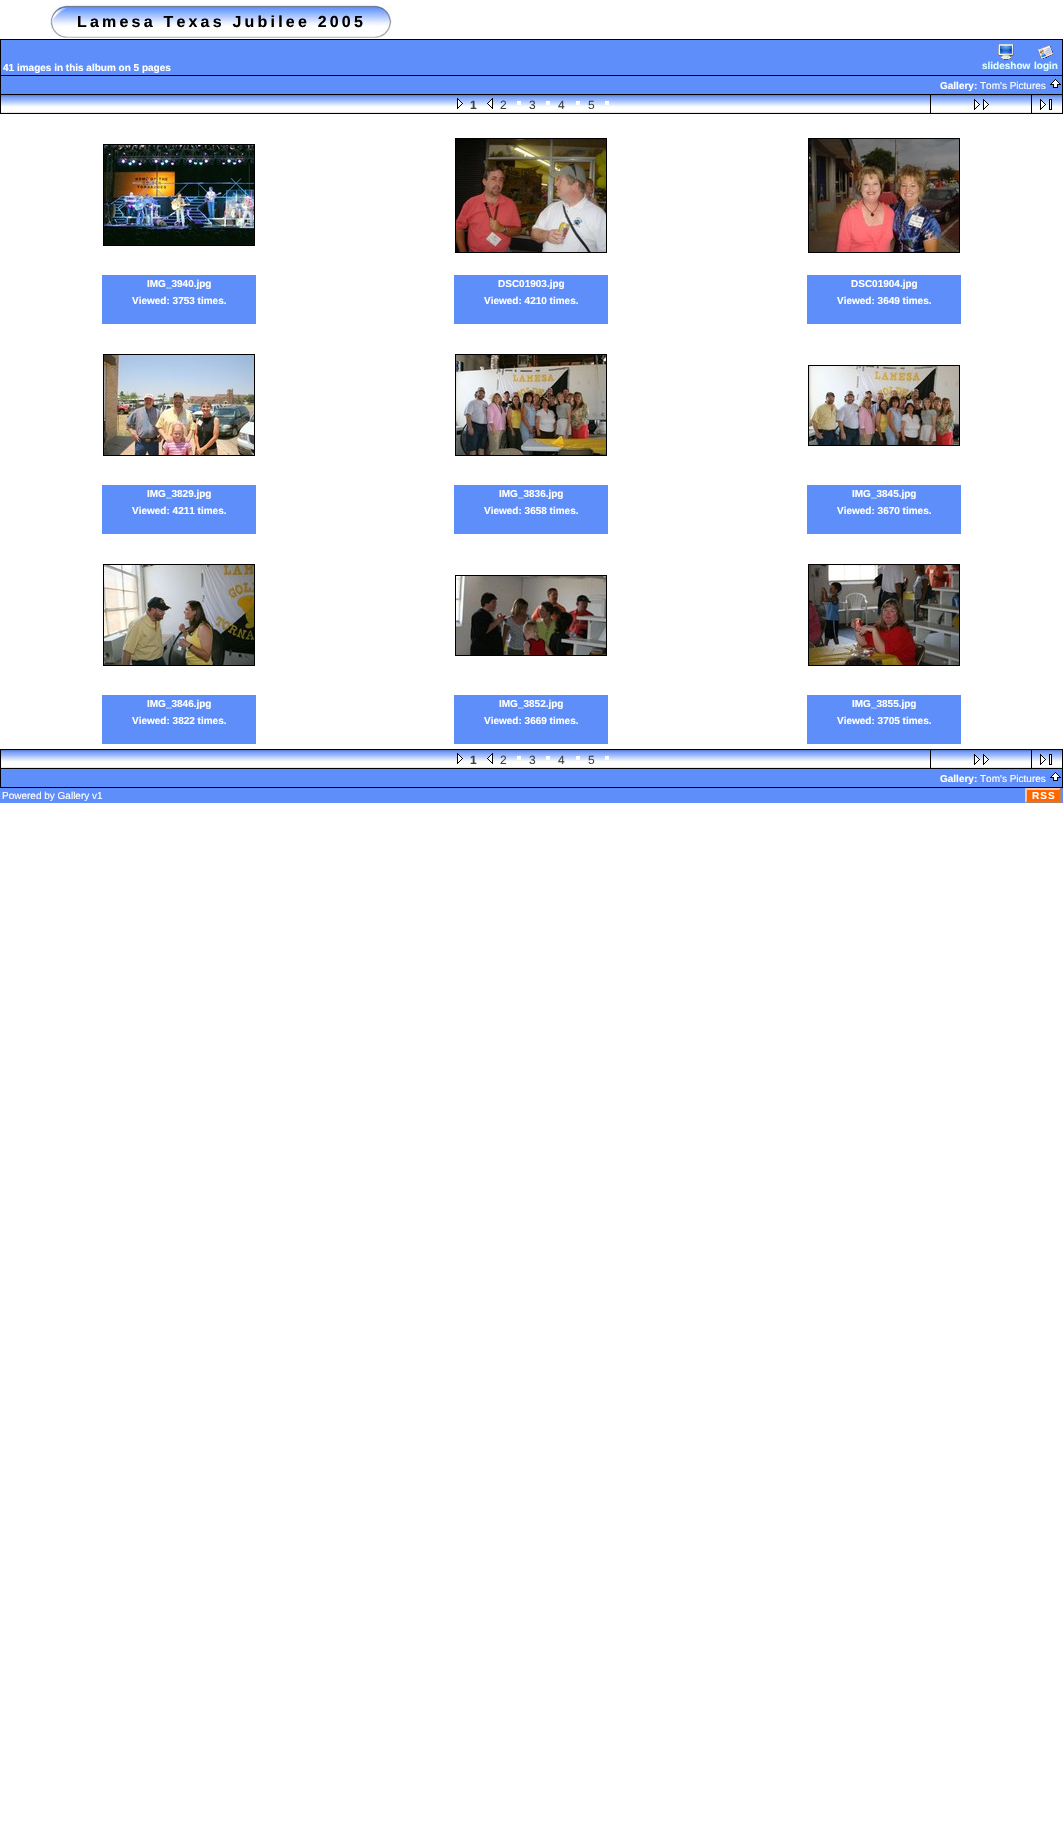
static SkFont makeFont(const char* family, int weight, float size, bool italic = false) {
  SkFontStyle style(weight, SkFontStyle::kNormal_Width,
    italic ? SkFontStyle::kItalic_Slant : SkFontStyle::kUpright_Slant);
  SkFont result(fontMgr->matchFamilyStyle(family, style), size);
  result.setSubpixel(true);
  return result;
}

static void text(SkCanvas* c, const char* s, float x, float y, const SkFont& font, SkColor color) {
  SkPaint ink(SkColor4f::FromColor(color));
  ink.setAntiAlias(true);
  c->drawString(s, x, y, font, ink);
}

static void spacedText(SkCanvas* c, const char* s, float x, float y, const SkFont& font, const SkPaint& ink, float letter, float word) {
  std::vector<SkGlyphID> glyphs(font.countText(s, strlen(s), SkTextEncoding::kUTF8));
  std::vector<float> xs(glyphs.size());
  font.textToGlyphs(s, strlen(s), SkTextEncoding::kUTF8, glyphs);
  font.getXPos(glyphs, xs, x);
  float extra = 0;
  for (size_t i = 0; i < glyphs.size(); i++) {
    xs[i] += extra;
    extra += letter + word * (glyphs[i] == font.unicharToGlyph(' '));
  }
  c->drawTextBlob(SkTextBlob::MakeFromPosHGlyphs(glyphs, xs, y, font), 0, 0, ink);
}

static void box(SkCanvas* c, float l, float t, float r, float b, SkColor color) {
  SkPaint ink(SkColor4f::FromColor(color));
  ink.setAntiAlias(true);
  c->drawRect(SkRect::MakeLTRB(l, t, r, b), ink);
}

static void picture(SkCanvas* c, const char* path, float l, float t, float r, float b) {
  auto image = SkImages::DeferredFromEncodedData(SkData::MakeFromFileName(path));
  c->drawImageRect(image, SkRect::MakeLTRB(l, t, r, b), SkSamplingOptions());
}

void draw(SkCanvas* c) {
  SkPaint paint;
  paint.setAntiAlias(true);
  c->clear(0xffffffff);
  picture(c, "img_01.png", 67, 5, 375, 38);
  picture(c, "img_02.png", 50, 5, 67, 38);
  SkFont face1 = makeFont("Liberation Sans", 700, 16);
  paint.setColor(0xff000000);
  spacedText(c, "Lamesa Texas Jubilee 2005", 77, 27, face1, paint, 3.2f, 0);
  picture(c, "img_03.png", 375, 5, 392, 38);
  paint.setStyle(SkPaint::kStroke_Style);
  paint.setStrokeWidth(1);
  c->drawRect(SkRect::MakeLTRB(0.5f, 39.5f, 1062.5f, 75.5f), paint);
  box(c, 1, 40, 1062, 75, 0xff5e8efa);
  SkFont face2 = makeFont("Liberation Sans", 700, 10);
  text(c, "41 images in this album on 5 pages", 3, 71, face2, 0xffffffff);
  picture(c, "img_04.png", 998, 44, 1014, 60);
  text(c, "slideshow", 982, 69, face2, 0xffdbffff);
  picture(c, "img_05.png", 1038, 44, 1053, 59);
  text(c, "login", 1034, 69, face2, 0xffdbffff);
  box(c, 1062, 76, 1063, 114, 0xff000000);
  box(c, 0, 94, 1063, 95, 0xff000000);
  box(c, 0, 76, 1, 95, 0xff000000);
  box(c, 1, 76, 1062, 94, 0xff5e8efa);
  text(c, "Gallery:", 940, 89, face2, 0xffffffff);
  SkFont face3 = makeFont("Liberation Sans", 400, 10);
  text(c, "Tom's Pictures", 980, 89, face3, 0xffffffff);
  picture(c, "img_06.png", 1050, 79, 1061, 88);
  box(c, 0, 113, 1063, 114, 0xff000000);
  box(c, 0, 95, 1, 114, 0xff000000);
  picture(c, "img_07.png", 1, 95, 1062, 113);
  picture(c, "img_08.png", 457, 98, 463, 109);
  SkFont face4 = makeFont("Liberation Sans", 700, 12);
  paint.setStyle(SkPaint::kFill_Style);
  paint.setColor(0xff404040);
  spacedText(c, "1", 470, 109, face4, paint, 2, 0);
  picture(c, "img_09.png", 487, 98, 493, 109);
  SkFont face5 = makeFont("Liberation Sans", 400, 12);
  spacedText(c, "2", 500, 109, face5, paint, 2, 0);
  box(c, 517, 101, 521, 105, 0xffffffff);
  spacedText(c, "3", 529, 109, face5, paint, 2, 0);
  box(c, 546, 101, 550, 105, 0xffffffff);
  spacedText(c, "4", 558, 109, face5, paint, 2, 0);
  box(c, 576, 101, 580, 105, 0xffffffff);
  spacedText(c, "5", 588, 109, face5, paint, 2, 0);
  box(c, 605, 101, 609, 105, 0xffffffff);
  box(c, 930, 95, 931, 113, 0xff000000);
  picture(c, "img_10.png", 974, 99, 989, 110);
  box(c, 1031, 95, 1032, 113, 0xff000000);
  picture(c, "img_11.png", 1040, 99, 1052, 110);
  box(c, 103, 144, 255, 145, 0xff000000);
  box(c, 103, 145, 104, 245, 0xff000000);
  picture(c, "img_12.png", 104, 145, 254, 245);
  box(c, 254, 145, 255, 245, 0xff000000);
  box(c, 103, 245, 255, 246, 0xff000000);
  box(c, 102, 275, 256, 324, 0xff5e8efa);
  text(c, "IMG_3940.jpg", 147, 287, face2, 0xffffffff);
  text(c, "Viewed: 3753 times.", 132, 304, face2, 0xffffffff);
  box(c, 455, 138, 607, 139, 0xff000000);
  box(c, 455, 139, 456, 252, 0xff000000);
  picture(c, "img_13.png", 456, 139, 606, 252);
  box(c, 606, 139, 607, 252, 0xff000000);
  box(c, 455, 252, 607, 253, 0xff000000);
  box(c, 454, 275, 608, 324, 0xff5e8efa);
  text(c, "DSC01903.jpg", 498, 287, face2, 0xffffffff);
  text(c, "Viewed: 4210 times.", 484, 304, face2, 0xffffffff);
  box(c, 808, 138, 960, 139, 0xff000000);
  box(c, 808, 139, 809, 252, 0xff000000);
  picture(c, "img_14.png", 809, 139, 959, 252);
  box(c, 959, 139, 960, 252, 0xff000000);
  box(c, 808, 252, 960, 253, 0xff000000);
  box(c, 807, 275, 961, 324, 0xff5e8efa);
  text(c, "DSC01904.jpg", 851, 287, face2, 0xffffffff);
  text(c, "Viewed: 3649 times.", 837, 304, face2, 0xffffffff);
  box(c, 103, 354, 255, 355, 0xff000000);
  box(c, 103, 355, 104, 455, 0xff000000);
  picture(c, "img_15.png", 104, 355, 254, 455);
  box(c, 254, 355, 255, 455, 0xff000000);
  box(c, 103, 455, 255, 456, 0xff000000);
  box(c, 102, 485, 256, 534, 0xff5e8efa);
  text(c, "IMG_3829.jpg", 147, 497, face2, 0xffffffff);
  text(c, "Viewed: 4211 times.", 132, 514, face2, 0xffffffff);
  box(c, 455, 354, 607, 355, 0xff000000);
  box(c, 455, 355, 456, 455, 0xff000000);
  picture(c, "img_16.png", 456, 355, 606, 455);
  box(c, 606, 355, 607, 455, 0xff000000);
  box(c, 455, 455, 607, 456, 0xff000000);
  box(c, 454, 485, 608, 534, 0xff5e8efa);
  text(c, "IMG_3836.jpg", 499, 497, face2, 0xffffffff);
  text(c, "Viewed: 3658 times.", 484, 514, face2, 0xffffffff);
  box(c, 808, 365, 960, 366, 0xff000000);
  box(c, 808, 366, 809, 445, 0xff000000);
  picture(c, "img_17.png", 809, 366, 959, 445);
  box(c, 959, 366, 960, 445, 0xff000000);
  box(c, 808, 445, 960, 446, 0xff000000);
  box(c, 807, 485, 961, 534, 0xff5e8efa);
  text(c, "IMG_3845.jpg", 852, 497, face2, 0xffffffff);
  text(c, "Viewed: 3670 times.", 837, 514, face2, 0xffffffff);
  box(c, 103, 564, 255, 565, 0xff000000);
  box(c, 103, 565, 104, 665, 0xff000000);
  picture(c, "img_18.png", 104, 565, 254, 665);
  box(c, 254, 565, 255, 665, 0xff000000);
  box(c, 103, 665, 255, 666, 0xff000000);
  box(c, 102, 695, 256, 744, 0xff5e8efa);
  text(c, "IMG_3846.jpg", 147, 707, face2, 0xffffffff);
  text(c, "Viewed: 3822 times.", 132, 724, face2, 0xffffffff);
  box(c, 455, 575, 607, 576, 0xff000000);
  box(c, 455, 576, 456, 655, 0xff000000);
  picture(c, "img_19.png", 456, 576, 606, 655);
  box(c, 606, 576, 607, 655, 0xff000000);
  box(c, 455, 655, 607, 656, 0xff000000);
  box(c, 454, 695, 608, 744, 0xff5e8efa);
  text(c, "IMG_3852.jpg", 499, 707, face2, 0xffffffff);
  text(c, "Viewed: 3669 times.", 484, 724, face2, 0xffffffff);
  box(c, 808, 564, 960, 565, 0xff000000);
  box(c, 808, 565, 809, 665, 0xff000000);
  picture(c, "img_20.png", 809, 565, 959, 665);
  box(c, 959, 565, 960, 665, 0xff000000);
  box(c, 808, 665, 960, 666, 0xff000000);
  box(c, 807, 695, 961, 744, 0xff5e8efa);
  text(c, "IMG_3855.jpg", 852, 707, face2, 0xffffffff);
  text(c, "Viewed: 3705 times.", 837, 724, face2, 0xffffffff);
  paint.setStyle(SkPaint::kStroke_Style);
  paint.setColor(0xff000000);
  c->drawRect(SkRect::MakeLTRB(0.5f, 749.5f, 1062.5f, 768.5f), paint);
  picture(c, "img_07.png", 1, 750, 1062, 768);
  picture(c, "img_08.png", 457, 753, 463, 764);
  paint.setStyle(SkPaint::kFill_Style);
  paint.setColor(0xff404040);
  spacedText(c, "1", 470, 764, face4, paint, 2, 0);
  picture(c, "img_09.png", 487, 753, 493, 764);
  spacedText(c, "2", 500, 764, face5, paint, 2, 0);
  box(c, 517, 756, 521, 760, 0xffffffff);
  spacedText(c, "3", 529, 764, face5, paint, 2, 0);
  box(c, 546, 756, 550, 760, 0xffffffff);
  spacedText(c, "4", 558, 764, face5, paint, 2, 0);
  box(c, 576, 756, 580, 760, 0xffffffff);
  spacedText(c, "5", 588, 764, face5, paint, 2, 0);
  box(c, 605, 756, 609, 760, 0xffffffff);
  box(c, 930, 750, 931, 768, 0xff000000);
  picture(c, "img_10.png", 974, 754, 989, 765);
  box(c, 1031, 750, 1032, 768, 0xff000000);
  picture(c, "img_11.png", 1040, 754, 1052, 765);
  box(c, 1062, 769, 1063, 788, 0xff000000);
  box(c, 0, 787, 1063, 788, 0xff000000);
  box(c, 0, 769, 1, 788, 0xff000000);
  box(c, 1, 769, 1062, 787, 0xff5e8efa);
  text(c, "Gallery:", 940, 782, face2, 0xffffffff);
  text(c, "Tom's Pictures", 980, 782, face3, 0xffffffff);
  picture(c, "img_06.png", 1050, 772, 1061, 781);
  box(c, 0, 788, 1063, 803, 0xff5e8efa);
  text(c, "Powered by Gallery v1", 2, 799, face3, 0xffffffff);
  box(c, 1025, 788, 1061, 803, 0xffff6600);
  paint.setColor(0xffffffff);
  spacedText(c, "RSS", 1032, 799, face2, paint, 1, 0);
  paint.setColor(0xffffc8a4);
  c->drawPath(SkPathBuilder().moveTo(1025, 788).lineTo(1061, 788).lineTo(1059, 790).lineTo(1027, 790).close().detach(), paint);
  paint.setColor(0xffaa856d);
  c->drawPath(SkPathBuilder().moveTo(1061, 788).lineTo(1061, 803).lineTo(1059, 801).lineTo(1059, 790).close().detach(), paint);
  c->drawPath(SkPathBuilder().moveTo(1061, 803).lineTo(1025, 803).lineTo(1027, 801).lineTo(1059, 801).close().detach(), paint);
  paint.setColor(0xffffc8a4);
  c->drawPath(SkPathBuilder().moveTo(1025, 803).lineTo(1025, 788).lineTo(1027, 790).lineTo(1027, 801).close().detach(), paint);
}
